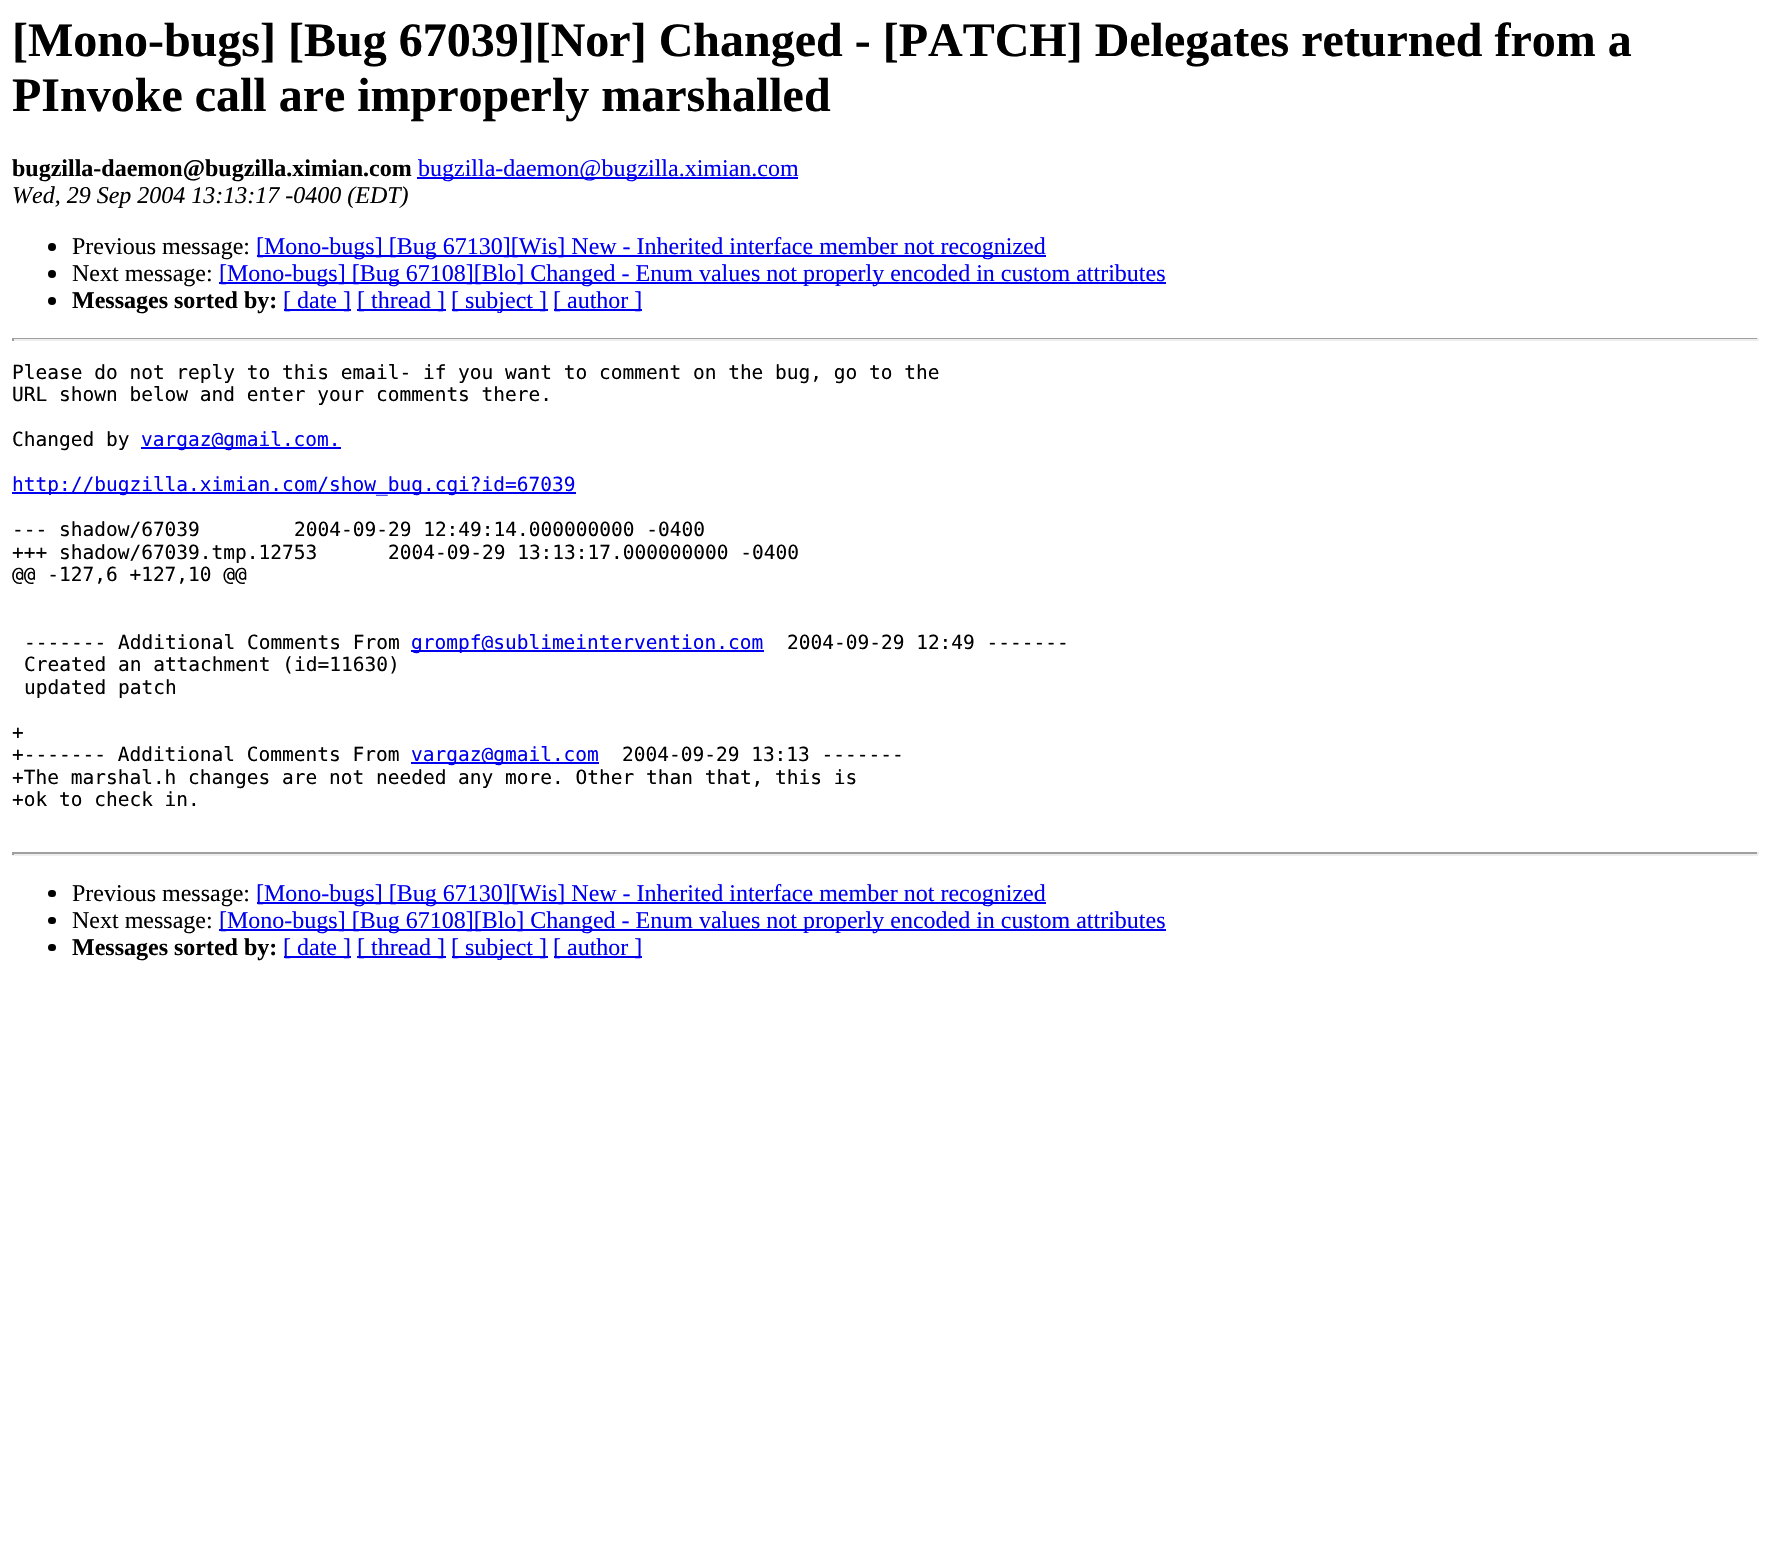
static SkFont makeFont(const char* family, int weight, float size, bool italic = false) {
  SkFontStyle style(weight, SkFontStyle::kNormal_Width,
    italic ? SkFontStyle::kItalic_Slant : SkFontStyle::kUpright_Slant);
  SkFont result(fontMgr->matchFamilyStyle(family, style), size);
  result.setSubpixel(true);
  return result;
}

static void text(SkCanvas* c, const char* s, float x, float y, const SkFont& font, SkColor color) {
  SkPaint ink(SkColor4f::FromColor(color));
  ink.setAntiAlias(true);
  c->drawString(s, x, y, font, ink);
}

static void box(SkCanvas* c, float l, float t, float r, float b, SkColor color) {
  SkPaint ink(SkColor4f::FromColor(color));
  ink.setAntiAlias(true);
  c->drawRect(SkRect::MakeLTRB(l, t, r, b), ink);
}

static void roundBox(SkCanvas* c, float l, float t, float r, float b, float radius, SkColor color) {
  SkPaint ink(SkColor4f::FromColor(color));
  ink.setAntiAlias(true);
  c->drawRoundRect(SkRect::MakeLTRB(l, t, r, b), radius, radius, ink);
}

void draw(SkCanvas* c) {
  SkPaint paint;
  paint.setAntiAlias(true);
  c->clear(0xffffffff);
  SkFont face1 = makeFont("Liberation Serif", 700, 48);
  text(c, "[Mono-bugs] [Bug 67039][Nor] Changed - [PATCH] Delegates returned from a", 12, 56, face1, 0xff000000);
  text(c, "PInvoke call are improperly marshalled", 12, 111, face1, 0xff000000);
  SkFont face2 = makeFont("Liberation Serif", 700, 24);
  text(c, "bugzilla-daemon@bugzilla.ximian.com", 12, 176, face2, 0xff000000);
  box(c, 417, 177, 798, 179, 0xff0000ee);
  SkFont face3 = makeFont("Liberation Serif", 400, 24);
  text(c, "bugzilla-daemon@bugzilla.ximian.com", 418, 176, face3, 0xff0000ee);
  SkFont face4 = makeFont("Liberation Serif", 400, 24, true);
  text(c, "Wed, 29 Sep 2004 13:13:17 -0400 (EDT)", 12, 203, face4, 0xff000000);
  paint.setColor(0xff000000);
  c->drawCircle(52, 247, 4, paint);
  text(c, "Previous message:", 72, 254, face3, 0xff000000);
  box(c, 257, 255, 1046, 257, 0xff0000ee);
  text(c, "[Mono-bugs] [Bug 67130][Wis] New - Inherited interface member not recognized", 256, 254, face3, 0xff0000ee);
  c->drawCircle(52, 274, 4, paint);
  text(c, "Next message:", 72, 281, face3, 0xff000000);
  box(c, 219, 282, 1166, 284, 0xff0000ee);
  text(c, "[Mono-bugs] [Bug 67108][Blo] Changed - Enum values not properly encoded in custom attributes", 219, 281, face3, 0xff0000ee);
  c->drawCircle(52, 301, 4, paint);
  text(c, "Messages sorted by:", 72, 308, face2, 0xff000000);
  box(c, 284, 309, 351, 311, 0xff0000ee);
  text(c, "[ date ]", 283, 308, face3, 0xff0000ee);
  box(c, 357, 309, 446, 311, 0xff0000ee);
  text(c, "[ thread ]", 357, 308, face3, 0xff0000ee);
  box(c, 452, 309, 548, 311, 0xff0000ee);
  text(c, "[ subject ]", 451, 308, face3, 0xff0000ee);
  box(c, 554, 309, 642, 311, 0xff0000ee);
  text(c, "[ author ]", 553, 308, face3, 0xff0000ee);
  box(c, 12, 338, 1758, 339, 0xff9f9f9f);
  box(c, 1757, 338, 1759, 341, 0xffeeeeee);
  box(c, 12, 339, 1758, 341, 0xffeeeeee);
  box(c, 12, 338, 14, 341, 0xff9f9f9f);
  SkFont face5 = makeFont("DejaVu Sans Mono", 400, 19.5f);
  text(c, "Please do not reply to this email- if you want to comment on the bug, go to the", 12, 379, face5, 0xff000000);
  text(c, "URL shown below and enter your comments there.", 12, 401, face5, 0xff000000);
  text(c, "Changed by", 12, 446, face5, 0xff000000);
  box(c, 141, 447, 341, 449, 0xff0000ee);
  text(c, "vargaz@gmail.com.", 141, 446, face5, 0xff0000ee);
  box(c, 12, 492, 576, 494, 0xff0000ee);
  text(c, "http://bugzilla.ximian.com/show_bug.cgi?id=67039", 12, 491, face5, 0xff0000ee);
  text(c, "--- shadow/67039", 12, 536, face5, 0xff000000);
  text(c, "2004-09-29 12:49:14.000000000 -0400", 294, 536, face5, 0xff000000);
  text(c, "+++ shadow/67039.tmp.12753", 12, 559, face5, 0xff000000);
  text(c, "2004-09-29 13:13:17.000000000 -0400", 388, 559, face5, 0xff000000);
  text(c, "@@ -127,6 +127,10 @@", 12, 581, face5, 0xff000000);
  text(c, "------- Additional Comments From", 24, 649, face5, 0xff000000);
  box(c, 411, 650, 764, 652, 0xff0000ee);
  text(c, "grompf@sublimeintervention.com", 411, 649, face5, 0xff0000ee);
  text(c, "2004-09-29 12:49 -------", 787, 649, face5, 0xff000000);
  text(c, "Created an attachment (id=11630)", 24, 671, face5, 0xff000000);
  text(c, "updated patch", 24, 694, face5, 0xff000000);
  text(c, "+", 12, 739, face5, 0xff000000);
  text(c, "+------- Additional Comments From", 12, 761, face5, 0xff000000);
  box(c, 411, 762, 599, 764, 0xff0000ee);
  text(c, "vargaz@gmail.com", 411, 761, face5, 0xff0000ee);
  text(c, "2004-09-29 13:13 -------", 622, 761, face5, 0xff000000);
  text(c, "+The marshal.h changes are not needed any more. Other than that, this is", 12, 784, face5, 0xff000000);
  text(c, "+ok to check in.", 12, 806, face5, 0xff000000);
  box(c, 12, 852, 1758, 854, 0xff9f9f9f);
  box(c, 1757, 852, 1759, 855, 0xffeeeeee);
  box(c, 12, 854, 1758, 856, 0xffeeeeee);
  box(c, 12, 852, 14, 855, 0xff9f9f9f);
  roundBox(c, 48, 890, 56, 897, 3.5f, 0xff000000);
  text(c, "Previous message:", 72, 901, face3, 0xff000000);
  box(c, 257, 902, 1046, 904, 0xff0000ee);
  text(c, "[Mono-bugs] [Bug 67130][Wis] New - Inherited interface member not recognized", 256, 901, face3, 0xff0000ee);
  roundBox(c, 48, 917, 56, 924, 3.5f, 0xff000000);
  text(c, "Next message:", 72, 928, face3, 0xff000000);
  box(c, 219, 929, 1166, 931, 0xff0000ee);
  text(c, "[Mono-bugs] [Bug 67108][Blo] Changed - Enum values not properly encoded in custom attributes", 219, 928, face3, 0xff0000ee);
  roundBox(c, 48, 944, 56, 951, 3.5f, 0xff000000);
  text(c, "Messages sorted by:", 72, 955, face2, 0xff000000);
  box(c, 284, 956, 351, 958, 0xff0000ee);
  text(c, "[ date ]", 283, 955, face3, 0xff0000ee);
  box(c, 357, 956, 446, 958, 0xff0000ee);
  text(c, "[ thread ]", 357, 955, face3, 0xff0000ee);
  box(c, 452, 956, 548, 958, 0xff0000ee);
  text(c, "[ subject ]", 451, 955, face3, 0xff0000ee);
  box(c, 554, 956, 642, 958, 0xff0000ee);
  text(c, "[ author ]", 553, 955, face3, 0xff0000ee);
}
